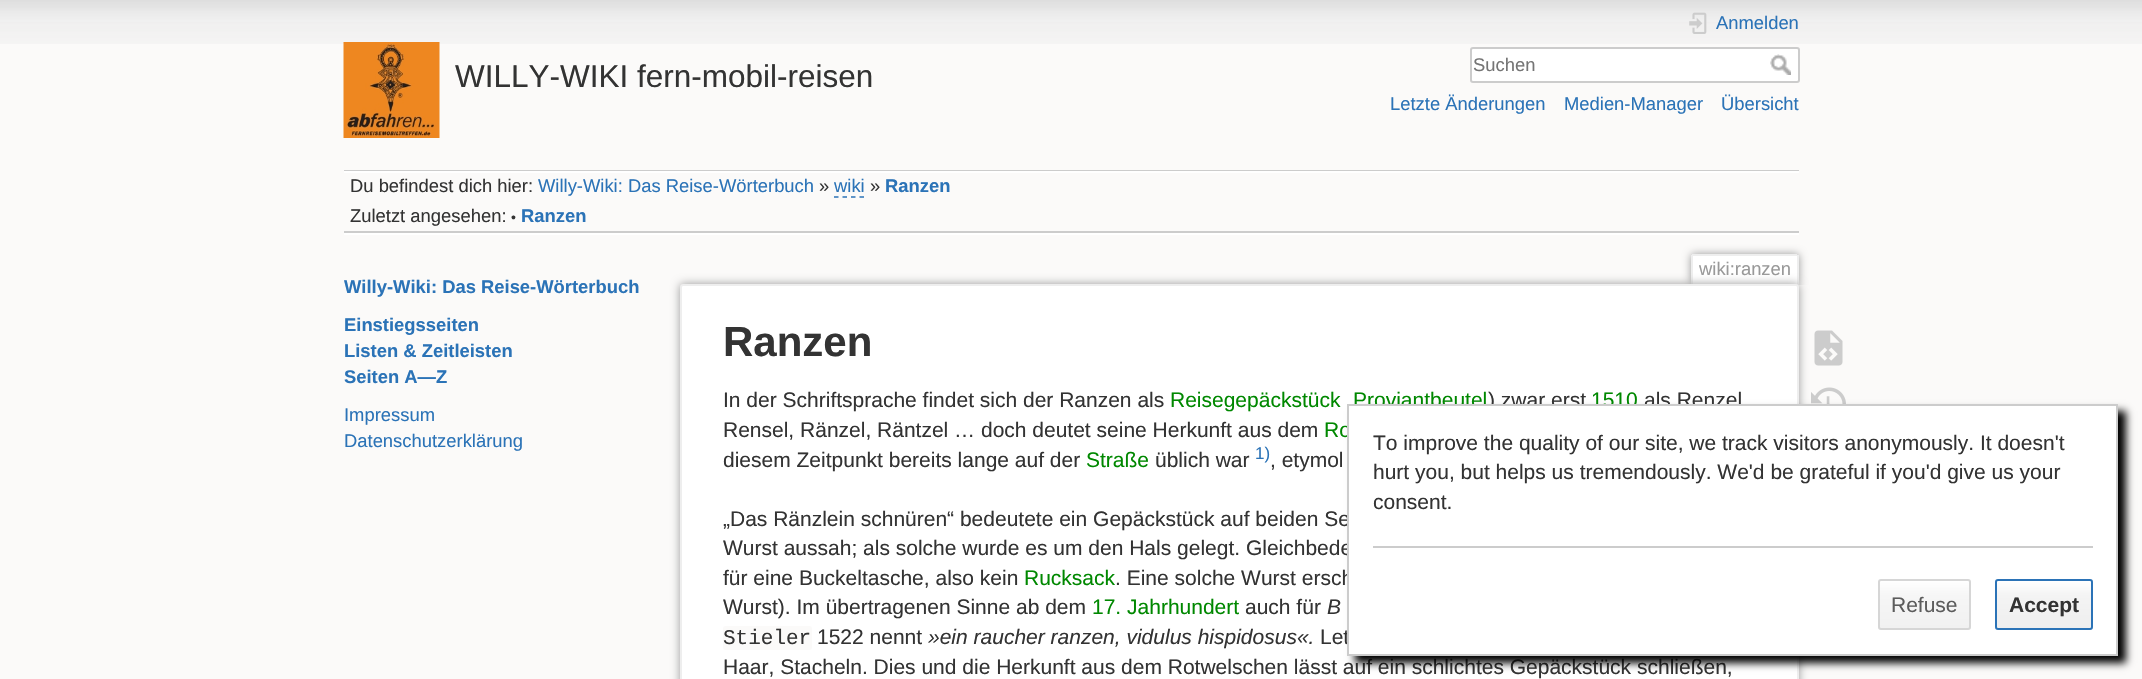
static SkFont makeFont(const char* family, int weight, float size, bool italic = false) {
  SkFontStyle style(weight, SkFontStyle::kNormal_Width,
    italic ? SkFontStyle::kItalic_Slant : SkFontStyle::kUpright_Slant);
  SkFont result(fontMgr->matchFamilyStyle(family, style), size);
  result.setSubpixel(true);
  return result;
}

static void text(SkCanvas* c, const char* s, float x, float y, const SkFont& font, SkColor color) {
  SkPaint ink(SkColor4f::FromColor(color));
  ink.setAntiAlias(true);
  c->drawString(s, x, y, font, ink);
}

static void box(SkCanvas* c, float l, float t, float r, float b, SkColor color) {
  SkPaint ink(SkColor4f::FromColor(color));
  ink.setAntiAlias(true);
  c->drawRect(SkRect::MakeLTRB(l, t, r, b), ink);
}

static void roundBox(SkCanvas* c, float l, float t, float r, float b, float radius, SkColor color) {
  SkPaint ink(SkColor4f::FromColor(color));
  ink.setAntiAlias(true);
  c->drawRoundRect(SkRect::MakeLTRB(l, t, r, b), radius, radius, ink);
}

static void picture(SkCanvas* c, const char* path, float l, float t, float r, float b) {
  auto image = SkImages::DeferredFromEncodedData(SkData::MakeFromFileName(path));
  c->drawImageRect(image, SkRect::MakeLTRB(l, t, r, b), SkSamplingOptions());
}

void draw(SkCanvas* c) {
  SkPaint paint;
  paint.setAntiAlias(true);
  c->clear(0xfffbfaf9);
  picture(c, "img_01.png", 0, 0, 2142, 44);
  picture(c, "img_02.png", 343, 42, 440, 138);
  SkFont face1 = makeFont("Liberation Sans", 400, 31.5f);
  text(c, "WILLY-WIKI fern-mobil-reisen", 455, 87, face1, 0xff333333);
  picture(c, "img_03.png", 1689, 12, 1707, 34);
  SkFont face2 = makeFont("Liberation Sans", 400, 18.4f);
  text(c, "Anmelden", 1716, 29, face2, 0xff2b73b7);
  paint.setColor(0xffffffff);
  c->drawRoundRect(SkRect::MakeLTRB(1471, 48, 1799, 82), 2, 2, paint);
  paint.setStyle(SkPaint::kStroke_Style);
  paint.setStrokeWidth(2);
  paint.setColor(0xffcccccc);
  c->drawRoundRect(SkRect::MakeLTRB(1471, 48, 1799, 82), 2, 2, paint);
  text(c, "Suchen", 1473, 71, face2, 0xff757575);
  picture(c, "img_04.png", 1770, 54, 1791, 75);
  text(c, "Letzte Änderungen", 1390, 110, face2, 0xff2b73b7);
  text(c, "Medien-Manager", 1564, 110, face2, 0xff2b73b7);
  text(c, "Übersicht", 1721, 110, face2, 0xff2b73b7);
  box(c, 344, 170, 1799, 171, 0xffcccccc);
  box(c, 344, 233, 1799, 235, 0xffffffff);
  box(c, 344, 171, 1799, 173, 0xffffffff);
  text(c, "Du befindest dich hier:", 350, 192, face2, 0xff333333);
  text(c, "Willy-Wiki: Das Reise-Wörterbuch", 538, 192, face2, 0xff2b73b7);
  text(c, "»", 819, 192, face2, 0xff333333);
  text(c, "wiki", 834, 192, face2, 0xff2b73b7);
  paint.setStrokeWidth(1.5f);
  paint.setColor(0xff2b73b7);
  paint.setPathEffect(SkDashPathEffect::Make({{4.5f, 4}}, 0));
  c->drawPath(SkPathBuilder().moveTo(834, 197).lineTo(864, 197).detach(), paint);
  paint.setPathEffect(nullptr);
  text(c, "»", 870, 192, face2, 0xff333333);
  SkFont face3 = makeFont("Liberation Sans", 700, 18.4f);
  text(c, "Ranzen", 885, 192, face3, 0xff2b73b7);
  box(c, 344, 231, 1799, 233, 0xffcccccc);
  text(c, "Zuletzt angesehen:", 350, 222, face2, 0xff333333);
  SkFont face4 = makeFont("Liberation Sans", 400, 14);
  text(c, "•", 511, 222, face4, 0xff333333);
  text(c, "Ranzen", 521, 222, face3, 0xff2b73b7);
  text(c, "Willy-Wiki: Das Reise-Wörterbuch", 344, 293, face3, 0xff2b73b7);
  text(c, "Einstiegsseiten", 344, 331, face3, 0xff2b73b7);
  text(c, "Listen & Zeitleisten", 344, 357, face3, 0xff2b73b7);
  text(c, "Seiten A—Z", 344, 383, face3, 0xff2b73b7);
  text(c, "Impressum", 344, 421, face2, 0xff2b73b7);
  text(c, "Datenschutzerklärung", 344, 447, face2, 0xff2b73b7);
  c->save();
  c->clipRect(SkRect::MakeLTRB(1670, 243, 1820, 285));
  paint.setStyle(SkPaint::kFill_Style);
  paint.setColor(0xff999999);
  paint.setMaskFilter(SkMaskFilter::MakeBlur(kNormal_SkBlurStyle, 4.5f));
  c->drawRoundRect(SkRect::MakeLTRB(1691, 254, 1799, 285), 3, 3, paint);
  paint.setMaskFilter(nullptr);
  c->restore();
  box(c, 1693, 256, 1797, 285, 0xffffffff);
  box(c, 1692, 254, 1797, 256, 0xffeeeeee);
  box(c, 1797, 255, 1799, 285, 0xffeeeeee);
  box(c, 1691, 255, 1693, 285, 0xffeeeeee);
  text(c, "wiki:ranzen", 1699, 275, face2, 0xff999999);
  paint.setMaskFilter(SkMaskFilter::MakeBlur(kNormal_SkBlurStyle, 5));
  c->drawRoundRect(SkRect::MakeLTRB(680, 284, 1799, 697), 3, 3, paint);
  paint.setMaskFilter(nullptr);
  paint.setColor(0xffffffff);
  c->drawRoundRect(SkRect::MakeLTRB(681, 285, 1798, 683), 2, 2, paint);
  paint.setStyle(SkPaint::kStroke_Style);
  paint.setStrokeWidth(2);
  paint.setColor(0xffeeeeee);
  c->drawRoundRect(SkRect::MakeLTRB(681, 285, 1798, 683), 2, 2, paint);
  SkFont face5 = makeFont("Liberation Sans", 700, 42);
  text(c, "Ranzen", 723, 356, face5, 0xff333333);
  SkFont face6 = makeFont("Liberation Sans", 400, 21);
  text(c, "In der Schriftsprache findet sich der Ranzen als", 723, 407, face6, 0xff333333);
  text(c, "Reisegepäckstück", 1170, 407, face6, 0xff008800);
  text(c, "Proviantbeutel", 1353, 407, face6, 0xff008800);
  text(c, ") zwar erst", 1488, 407, face6, 0xff333333);
  text(c, "1510", 1591, 407, face6, 0xff008800);
  text(c, "als Renzel", 1644, 407, face6, 0xff333333);
  text(c, "Rensel, Ränzel, Räntzel … doch deutet seine Herkunft aus dem", 723, 437, face6, 0xff333333);
  text(c, "Ro", 1324, 437, face6, 0xff008800);
  text(c, "diesem Zeitpunkt bereits lange auf der", 723, 467, face6, 0xff333333);
  text(c, "Straße", 1086, 467, face6, 0xff008800);
  text(c, "üblich war", 1155, 467, face6, 0xff333333);
  SkFont face7 = makeFont("Liberation Sans", 400, 17);
  text(c, "1)", 1255, 459, face7, 0xff2b73b7);
  text(c, ", etymol", 1270, 467, face6, 0xff333333);
  text(c, "„Das Ränzlein schnüren“ bedeutete ein Gepäckstück auf beiden Se", 723, 526, face6, 0xff333333);
  text(c, "Wurst aussah; als solche wurde es um den Hals gelegt. Gleichbede", 723, 555, face6, 0xff333333);
  text(c, "für eine Buckeltasche, also kein", 723, 585, face6, 0xff333333);
  text(c, "Rucksack", 1024, 585, face6, 0xff008800);
  text(c, ". Eine solche Wurst ersch", 1115, 585, face6, 0xff333333);
  text(c, "Wurst). Im übertragenen Sinne ab dem", 723, 614, face6, 0xff333333);
  text(c, "17. Jahrhundert", 1092, 614, face6, 0xff008800);
  text(c, "auch für", 1245, 614, face6, 0xff333333);
  SkFont face8 = makeFont("Liberation Sans", 400, 21, true);
  text(c, "B", 1327, 614, face8, 0xff333333);
  roundBox(c, 723, 626, 812, 650, 3, 0xfffbfaf9);
  SkFont face9 = makeFont("Liberation Mono", 400, 21);
  text(c, "Stieler", 723, 644, face9, 0xff333333);
  text(c, "1522 nennt", 817, 644, face6, 0xff333333);
  text(c, "»ein raucher ranzen, vidulus hispidosus«.", 928, 644, face8, 0xff333333);
  text(c, "Let", 1320, 644, face6, 0xff333333);
  text(c, "Haar, Stacheln. Dies und die Herkunft aus dem Rotwelschen lässt auf ein schlichtes Gepäckstück schließen,", 723, 674, face6, 0xff333333);
  picture(c, "img_05.png", 1814, 330, 1843, 366);
  picture(c, "img_06.png", 1811, 387, 1846, 404);
  paint.setStyle(SkPaint::kFill_Style);
  paint.setColor(0xff000000);
  paint.setMaskFilter(SkMaskFilter::MakeBlur(kNormal_SkBlurStyle, 4));
  c->drawRect(SkRect::MakeLTRB(1355, 411, 2126, 663), paint);
  paint.setMaskFilter(nullptr);
  paint.setColor(0xffffffff);
  c->drawRect(SkRect::MakeLTRB(1348, 405, 2117, 655), paint);
  paint.setStyle(SkPaint::kStroke_Style);
  paint.setColor(0xffcccccc);
  c->drawRect(SkRect::MakeLTRB(1348, 405, 2117, 655), paint);
  text(c, "To improve the quality of our site, we track visitors anonymously. It doesn't", 1373, 450, face6, 0xff333333);
  text(c, "hurt you, but helps us tremendously. We'd be grateful if you'd give us your", 1373, 479, face6, 0xff333333);
  text(c, "consent.", 1373, 509, face6, 0xff333333);
  box(c, 1373, 546, 2093, 548, 0xffcccccc);
  c->save();
  c->clipPath(SkPathBuilder().moveTo(1881, 579).lineTo(1968, 579).cubicTo(1969.5f, 579, 1971, 580.5f, 1971, 582).lineTo(1971, 627).cubicTo(1971, 628.5f, 1969.5f, 630, 1968, 630).lineTo(1881, 630).cubicTo(1879.5f, 630, 1878, 628.5f, 1878, 627).lineTo(1878, 582).cubicTo(1878, 580.5f, 1879.5f, 579, 1881, 579).close().detach(), true);
  paint.setStyle(SkPaint::kFill_Style);
  {
    const SkColor colors[] = {0xffffffff, 0xfff6f6f6, 0xfff1f1f1, 0xffd6d6d6};
    const float stops[] = {0, 0.3f, 0.99f, 0.99f};
    const SkPoint ends[] = {{1925, 581}, {1925, 629}};
    paint.setShader(SkGradientShader::MakeLinear(ends, colors, stops, 4, SkTileMode::kClamp));
    paint.setAlpha(255);
  }
  c->drawRect(SkRect::MakeLTRB(1878, 581, 1971, 629), paint);
  c->restore();
  paint.setStyle(SkPaint::kStroke_Style);
  paint.setShader(nullptr);
  paint.setColor(0xffd6d6d6);
  c->drawRoundRect(SkRect::MakeLTRB(1879, 580, 1970, 629), 2, 2, paint);
  text(c, "Refuse", 1891, 612, face6, 0xff5c5c5c);
  c->save();
  c->clipPath(SkPathBuilder().moveTo(1998, 579).lineTo(2090, 579).cubicTo(2091.5f, 579, 2093, 580.5f, 2093, 582).lineTo(2093, 627).cubicTo(2093, 628.5f, 2091.5f, 630, 2090, 630).lineTo(1998, 630).cubicTo(1996.5f, 630, 1995, 628.5f, 1995, 627).lineTo(1995, 582).cubicTo(1995, 580.5f, 1996.5f, 579, 1998, 579).close().detach(), true);
  paint.setStyle(SkPaint::kFill_Style);
  {
    const SkColor colors[] = {0xffffffff, 0xfff4f4f4, 0xffeeeeee, 0xffcccccc};
    const float stops[] = {0, 0.3f, 0.99f, 0.99f};
    const SkPoint ends[] = {{2044, 581}, {2044, 629}};
    paint.setShader(SkGradientShader::MakeLinear(ends, colors, stops, 4, SkTileMode::kClamp));
    paint.setAlpha(255);
  }
  c->drawRect(SkRect::MakeLTRB(1995, 581, 2093, 629), paint);
  c->restore();
  paint.setStyle(SkPaint::kStroke_Style);
  paint.setShader(nullptr);
  paint.setColor(0xff2b73b7);
  c->drawRoundRect(SkRect::MakeLTRB(1996, 580, 2092, 629), 2, 2, paint);
  SkFont face10 = makeFont("Liberation Sans", 700, 21);
  text(c, "Accept", 2009, 612, face10, 0xff333333);
}
